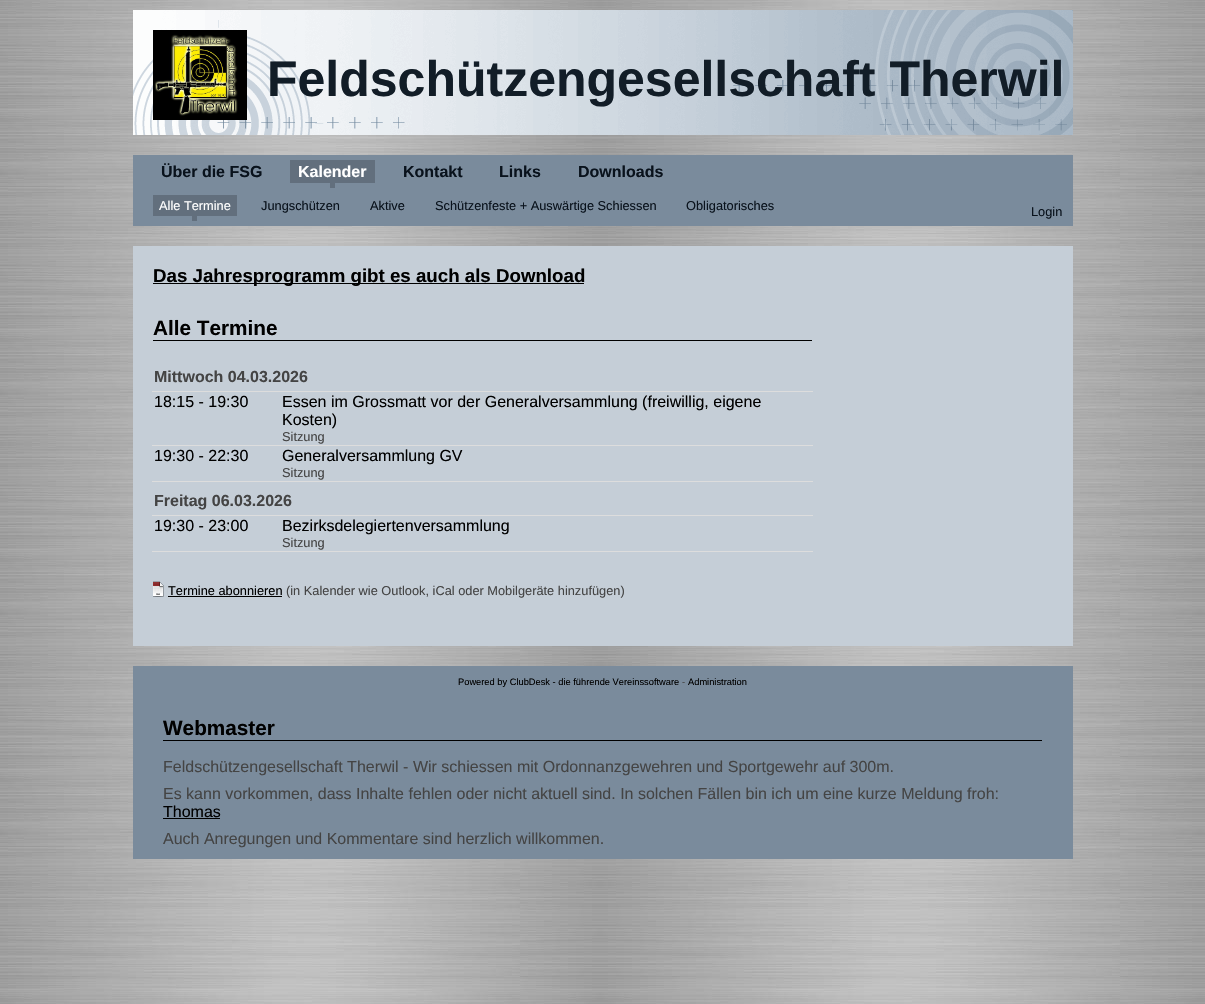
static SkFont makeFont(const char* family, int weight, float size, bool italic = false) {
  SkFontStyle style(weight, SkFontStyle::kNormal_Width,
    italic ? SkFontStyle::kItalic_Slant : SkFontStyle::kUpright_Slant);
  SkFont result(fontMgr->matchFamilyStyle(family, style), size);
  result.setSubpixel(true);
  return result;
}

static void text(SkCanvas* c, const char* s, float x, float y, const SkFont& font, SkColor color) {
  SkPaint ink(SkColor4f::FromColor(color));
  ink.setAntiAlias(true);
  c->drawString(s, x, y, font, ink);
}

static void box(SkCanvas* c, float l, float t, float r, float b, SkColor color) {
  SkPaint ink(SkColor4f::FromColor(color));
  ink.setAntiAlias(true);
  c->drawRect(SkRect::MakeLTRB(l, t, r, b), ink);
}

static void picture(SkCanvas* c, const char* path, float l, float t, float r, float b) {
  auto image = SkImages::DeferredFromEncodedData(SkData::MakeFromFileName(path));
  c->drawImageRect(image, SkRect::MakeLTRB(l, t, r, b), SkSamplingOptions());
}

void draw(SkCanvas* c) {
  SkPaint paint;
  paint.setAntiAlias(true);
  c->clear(0xffffffff);
  picture(c, "img_01.png", 0, 0, 1205, 1004);
  picture(c, "img_02.png", 133, 10, 1073, 135);
  picture(c, "img_03.png", 153, 30, 247, 120);
  SkFont face1 = makeFont("Liberation Sans", 700, 50);
  text(c, "Feldschützengesellschaft Therwil", 267, 96, face1, 0xff121d27);
  box(c, 133, 155, 1073, 226, 0xff7a8b9c);
  SkFont face2 = makeFont("Liberation Sans", 700, 16);
  text(c, "Über die FSG", 161, 177, face2, 0xff09121c);
  box(c, 290, 160, 375, 183, 0xff626f7d);
  text(c, "Kalender", 298, 177, face2, 0xffffffff);
  box(c, 330, 183, 335, 188, 0xff626f7d);
  text(c, "Kontakt", 403, 177, face2, 0xff09121c);
  text(c, "Links", 499, 177, face2, 0xff09121c);
  text(c, "Downloads", 578, 177, face2, 0xff09121c);
  box(c, 153, 195, 237, 216, 0xff626f7d);
  SkFont face3 = makeFont("Liberation Sans", 400, 12.8f);
  text(c, "Alle Termine", 159, 210, face3, 0xffffffff);
  box(c, 192, 216, 197, 221, 0xff626f7d);
  text(c, "Jungschützen", 261, 210, face3, 0xff09121c);
  text(c, "Aktive", 370, 210, face3, 0xff09121c);
  text(c, "Schützenfeste + Auswärtige Schiessen", 435, 210, face3, 0xff09121c);
  text(c, "Obligatorisches", 686, 210, face3, 0xff09121c);
  text(c, "Login", 1031, 216, face3, 0xff09121c);
  box(c, 133, 246, 1073, 646, 0xffc5ced7);
  box(c, 153, 283, 584, 284, 0xff000000);
  SkFont face4 = makeFont("Liberation Sans", 700, 18.7f);
  text(c, "Das Jahresprogramm gibt es auch als Download", 153, 282, face4, 0xff000000);
  box(c, 153, 340, 812, 341, 0xff000000);
  SkFont face5 = makeFont("Liberation Sans", 700, 20.75f);
  text(c, "Alle Termine", 153, 335, face5, 0xff000000);
  text(c, "Mittwoch 04.03.2026", 154, 382, face2, 0xff444444);
  SkFont face6 = makeFont("Liberation Sans", 400, 16);
  text(c, "18:15 - 19:30", 154, 407, face6, 0xff000000);
  box(c, 152, 391, 813, 392, 0xffdddddd);
  text(c, "Essen im Grossmatt vor der Generalversammlung (freiwillig, eigene", 282, 407, face6, 0xff000000);
  text(c, "Kosten)", 282, 425, face6, 0xff000000);
  text(c, "Sitzung", 282, 441, face3, 0xff444444);
  text(c, "19:30 - 22:30", 154, 461, face6, 0xff000000);
  box(c, 152, 445, 813, 446, 0xffdddddd);
  box(c, 152, 481, 813, 482, 0xffdddddd);
  text(c, "Generalversammlung GV", 282, 461, face6, 0xff000000);
  text(c, "Sitzung", 282, 477, face3, 0xff444444);
  text(c, "Freitag 06.03.2026", 154, 506, face2, 0xff444444);
  text(c, "19:30 - 23:00", 154, 531, face6, 0xff000000);
  box(c, 152, 515, 813, 516, 0xffdddddd);
  box(c, 152, 551, 813, 552, 0xffdddddd);
  text(c, "Bezirksdelegiertenversammlung", 282, 531, face6, 0xff000000);
  text(c, "Sitzung", 282, 547, face3, 0xff444444);
  picture(c, "img_04.png", 153, 581, 164, 597);
  text(c, "Termine abonnieren", 168, 595, face3, 0xff000000);
  box(c, 168, 596, 282, 597, 0xff000000);
  text(c, "(in Kalender wie Outlook, iCal oder Mobilgeräte hinzufügen)", 286, 595, face3, 0xff444444);
  box(c, 133, 666, 1073, 859, 0xff7a8b9c);
  SkFont face7 = makeFont("Liberation Sans", 400, 9.3f);
  text(c, "Powered by ClubDesk - die führende Vereinssoftware", 458, 685, face7, 0xff000000);
  text(c, "-", 682, 685, face7, 0xff444444);
  text(c, "Administration", 688, 685, face7, 0xff000000);
  box(c, 163, 740, 1042, 741, 0xff000000);
  text(c, "Webmaster", 163, 735, face5, 0xff000000);
  text(c, "Feldschützengesellschaft Therwil - Wir schiessen mit Ordonnanzgewehren und Sportgewehr auf 300m.", 163, 772, face6, 0xff444444);
  text(c, "Es kann vorkommen, dass Inhalte fehlen oder nicht aktuell sind. In solchen Fällen bin ich um eine kurze Meldung froh:", 163, 799, face6, 0xff444444);
  text(c, "Thomas", 163, 817, face6, 0xff000000);
  box(c, 163, 818, 220, 819, 0xff000000);
  text(c, "Auch Anregungen und Kommentare sind herzlich willkommen.", 163, 844, face6, 0xff444444);
}
